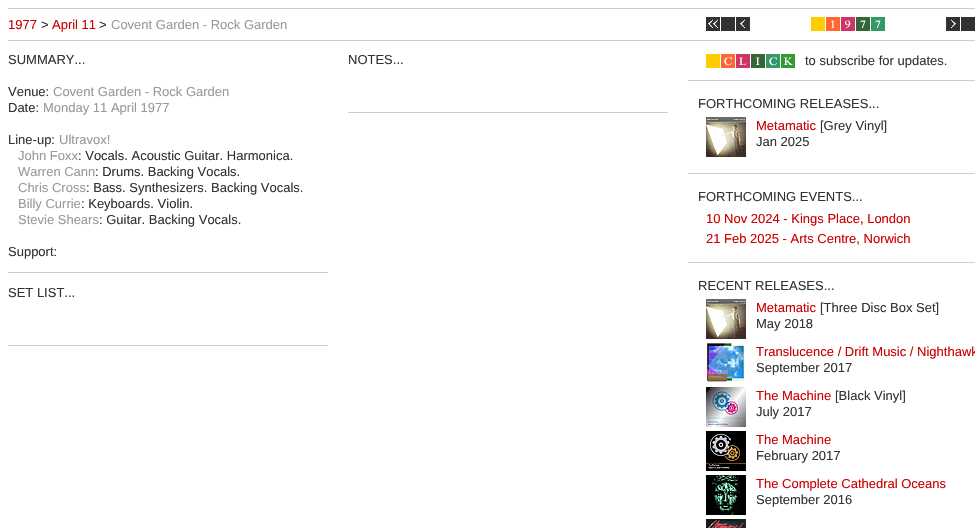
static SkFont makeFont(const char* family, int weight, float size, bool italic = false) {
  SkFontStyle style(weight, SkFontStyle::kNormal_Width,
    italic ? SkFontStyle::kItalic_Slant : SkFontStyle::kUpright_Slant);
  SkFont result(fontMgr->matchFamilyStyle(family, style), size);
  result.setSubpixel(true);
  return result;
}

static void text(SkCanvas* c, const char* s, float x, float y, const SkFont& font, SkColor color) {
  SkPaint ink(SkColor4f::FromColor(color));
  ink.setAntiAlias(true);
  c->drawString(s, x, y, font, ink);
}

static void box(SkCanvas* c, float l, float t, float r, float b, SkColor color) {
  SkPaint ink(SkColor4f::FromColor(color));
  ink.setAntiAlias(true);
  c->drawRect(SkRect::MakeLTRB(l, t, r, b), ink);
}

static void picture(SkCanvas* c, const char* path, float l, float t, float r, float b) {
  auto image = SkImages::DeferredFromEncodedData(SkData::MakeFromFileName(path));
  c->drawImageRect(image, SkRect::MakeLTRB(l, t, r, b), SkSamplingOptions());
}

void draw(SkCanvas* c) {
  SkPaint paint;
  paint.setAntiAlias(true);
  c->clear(0xffffffff);
  box(c, 8, 8, 975, 9, 0xffcecece);
  SkFont face1 = makeFont("Liberation Sans", 400, 13);
  text(c, "1977", 8, 29, face1, 0xffcc0000);
  text(c, ">", 41, 29, face1, 0xff333333);
  text(c, "April 11", 52, 29, face1, 0xffcc0000);
  text(c, ">", 99, 29, face1, 0xff333333);
  text(c, "Covent Garden - Rock Garden", 111, 29, face1, 0xff999999);
  box(c, 706, 17, 720, 31, 0xff313131);
  picture(c, "img_01.png", 708, 19, 718, 28);
  box(c, 721, 17, 735, 31, 0xff313131);
  box(c, 736, 17, 750, 31, 0xff313131);
  picture(c, "img_02.png", 740, 19, 745, 28);
  box(c, 811, 17, 825, 31, 0xffffcc00);
  box(c, 826, 17, 840, 31, 0xffff6633);
  picture(c, "img_03.png", 831, 20, 835, 28);
  box(c, 841, 17, 855, 31, 0xffcc3566);
  picture(c, "img_04.png", 845, 20, 851, 29);
  box(c, 856, 17, 870, 31, 0xff356635);
  picture(c, "img_05.png", 860, 20, 866, 29);
  box(c, 871, 17, 885, 31, 0xff339966);
  picture(c, "img_06.png", 875, 20, 881, 29);
  box(c, 946, 17, 960, 31, 0xff313131);
  picture(c, "img_07.png", 951, 19, 956, 28);
  box(c, 961, 17, 975, 31, 0xff313131);
  box(c, 8, 40, 975, 41, 0xffcecece);
  text(c, "SUMMARY...", 8, 64, face1, 0xff333333);
  text(c, "Venue:", 8, 96, face1, 0xff333333);
  text(c, "Covent Garden - Rock Garden", 53, 96, face1, 0xff999999);
  text(c, "Date:", 8, 112, face1, 0xff333333);
  text(c, "Monday 11 April 1977", 43, 112, face1, 0xff999999);
  text(c, "Line-up:", 8, 144, face1, 0xff333333);
  text(c, "Ultravox!", 59, 144, face1, 0xff999999);
  text(c, "John Foxx", 18, 160, face1, 0xff999999);
  text(c, ": Vocals. Acoustic Guitar. Harmonica.", 78, 160, face1, 0xff333333);
  text(c, "Warren Cann", 18, 176, face1, 0xff999999);
  text(c, ": Drums. Backing Vocals.", 95, 176, face1, 0xff333333);
  text(c, "Chris Cross", 18, 192, face1, 0xff999999);
  text(c, ": Bass. Synthesizers. Backing Vocals.", 86, 192, face1, 0xff333333);
  text(c, "Billy Currie", 18, 208, face1, 0xff999999);
  text(c, ": Keyboards. Violin.", 81, 208, face1, 0xff333333);
  text(c, "Stevie Shears", 18, 224, face1, 0xff999999);
  text(c, ": Guitar. Backing Vocals.", 99, 224, face1, 0xff333333);
  text(c, "Support:", 8, 256, face1, 0xff333333);
  box(c, 8, 272, 328, 273, 0xffcecece);
  text(c, "SET LIST...", 8, 297, face1, 0xff333333);
  box(c, 8, 345, 328, 346, 0xffcecece);
  text(c, "NOTES...", 348, 64, face1, 0xff333333);
  box(c, 348, 112, 668, 113, 0xffcecece);
  box(c, 706, 54, 720, 68, 0xffffcc00);
  box(c, 721, 54, 735, 68, 0xffff6633);
  picture(c, "img_08.png", 724, 57, 732, 66);
  box(c, 736, 54, 750, 68, 0xffcc3566);
  picture(c, "img_09.png", 739, 57, 747, 65);
  box(c, 751, 54, 765, 68, 0xff356635);
  picture(c, "img_10.png", 755, 57, 760, 65);
  box(c, 766, 54, 780, 68, 0xff339966);
  picture(c, "img_11.png", 769, 57, 777, 66);
  box(c, 781, 54, 795, 68, 0xff339933);
  picture(c, "img_12.png", 783, 57, 793, 65);
  text(c, "to subscribe for updates.", 805, 65, face1, 0xff333333);
  box(c, 688, 80, 975, 81, 0xffcecece);
  text(c, "FORTHCOMING RELEASES...", 698, 108, face1, 0xff333333);
  picture(c, "img_13.png", 706, 117, 746, 157);
  text(c, "Metamatic", 756, 130, face1, 0xffcc0000);
  text(c, "[Grey Vinyl]", 820, 130, face1, 0xff333333);
  text(c, "Jan 2025", 756, 146, face1, 0xff333333);
  box(c, 688, 173, 975, 174, 0xffcecece);
  text(c, "FORTHCOMING EVENTS...", 698, 201, face1, 0xff333333);
  text(c, "10 Nov 2024 - Kings Place, London", 706, 223, face1, 0xffcc0000);
  text(c, "21 Feb 2025 - Arts Centre, Norwich", 706, 243, face1, 0xffcc0000);
  box(c, 688, 262, 975, 263, 0xffcecece);
  text(c, "RECENT RELEASES...", 698, 290, face1, 0xff333333);
  picture(c, "img_13.png", 706, 299, 746, 339);
  text(c, "Metamatic", 756, 312, face1, 0xffcc0000);
  text(c, "[Three Disc Box Set]", 820, 312, face1, 0xff333333);
  text(c, "May 2018", 756, 328, face1, 0xff333333);
  picture(c, "img_14.png", 706, 343, 745, 382);
  text(c, "Translucence / Drift Music / Nighthawk", 756, 356, face1, 0xffcc0000);
  text(c, "September 2017", 756, 372, face1, 0xff333333);
  picture(c, "img_15.png", 706, 387, 746, 427);
  text(c, "The Machine", 756, 400, face1, 0xffcc0000);
  text(c, "[Black Vinyl]", 835, 400, face1, 0xff333333);
  text(c, "July 2017", 756, 416, face1, 0xff333333);
  picture(c, "img_16.png", 706, 431, 746, 471);
  text(c, "The Machine", 756, 444, face1, 0xffcc0000);
  text(c, "February 2017", 756, 460, face1, 0xff333333);
  picture(c, "img_17.png", 706, 475, 746, 515);
  text(c, "The Complete Cathedral Oceans", 756, 488, face1, 0xffcc0000);
  text(c, "September 2016", 756, 504, face1, 0xff333333);
  picture(c, "img_18.png", 706, 519, 746, 528);
}
